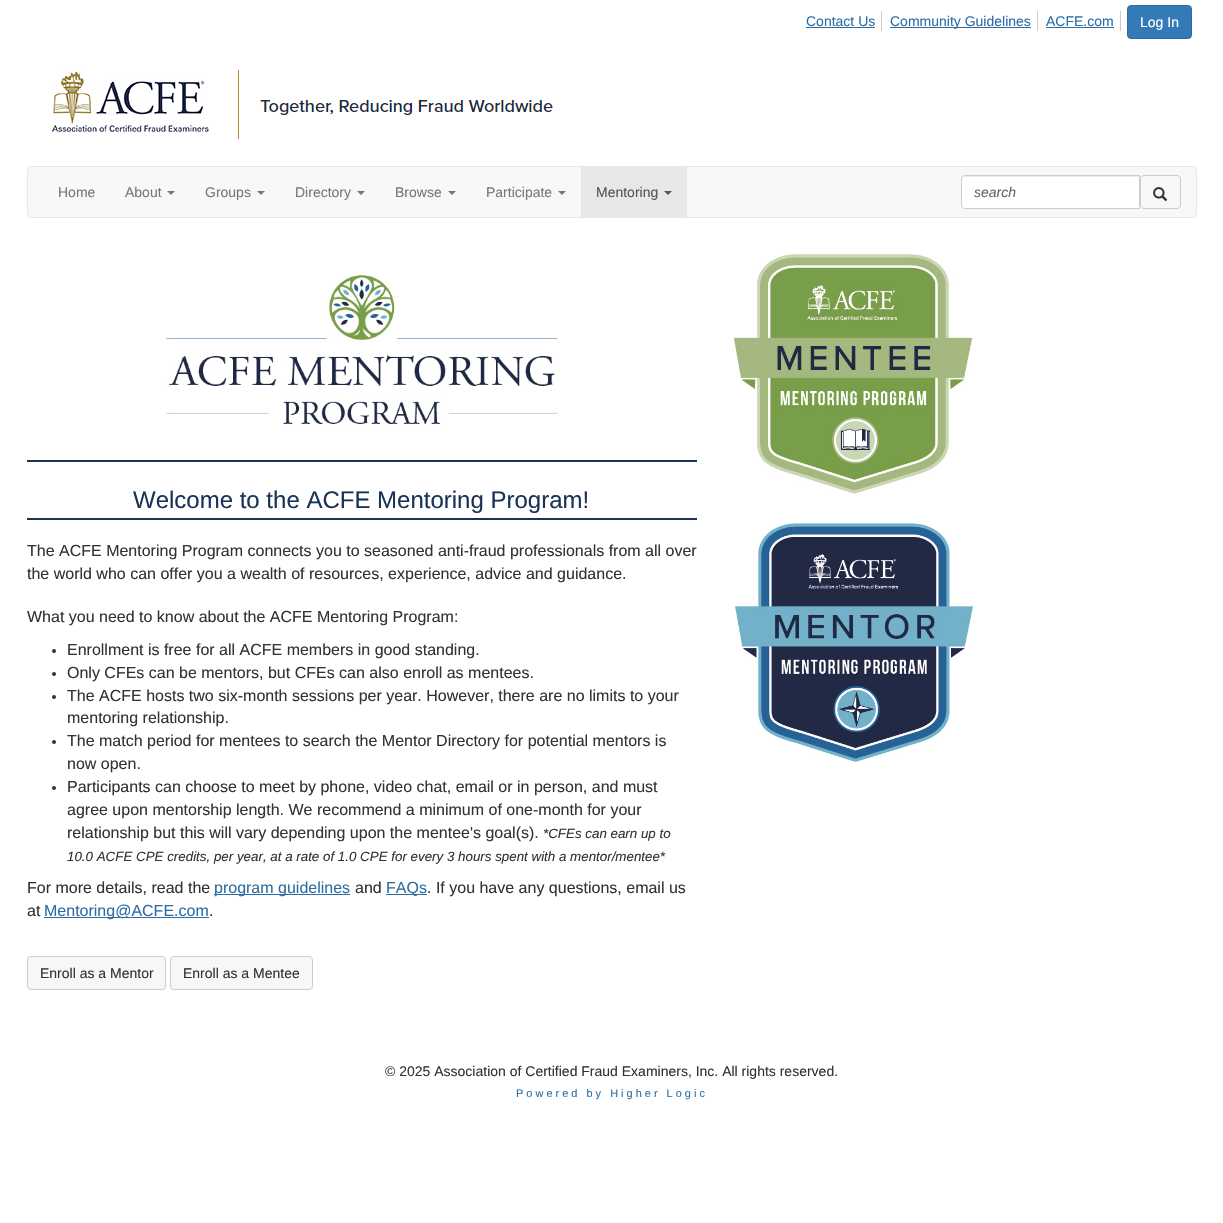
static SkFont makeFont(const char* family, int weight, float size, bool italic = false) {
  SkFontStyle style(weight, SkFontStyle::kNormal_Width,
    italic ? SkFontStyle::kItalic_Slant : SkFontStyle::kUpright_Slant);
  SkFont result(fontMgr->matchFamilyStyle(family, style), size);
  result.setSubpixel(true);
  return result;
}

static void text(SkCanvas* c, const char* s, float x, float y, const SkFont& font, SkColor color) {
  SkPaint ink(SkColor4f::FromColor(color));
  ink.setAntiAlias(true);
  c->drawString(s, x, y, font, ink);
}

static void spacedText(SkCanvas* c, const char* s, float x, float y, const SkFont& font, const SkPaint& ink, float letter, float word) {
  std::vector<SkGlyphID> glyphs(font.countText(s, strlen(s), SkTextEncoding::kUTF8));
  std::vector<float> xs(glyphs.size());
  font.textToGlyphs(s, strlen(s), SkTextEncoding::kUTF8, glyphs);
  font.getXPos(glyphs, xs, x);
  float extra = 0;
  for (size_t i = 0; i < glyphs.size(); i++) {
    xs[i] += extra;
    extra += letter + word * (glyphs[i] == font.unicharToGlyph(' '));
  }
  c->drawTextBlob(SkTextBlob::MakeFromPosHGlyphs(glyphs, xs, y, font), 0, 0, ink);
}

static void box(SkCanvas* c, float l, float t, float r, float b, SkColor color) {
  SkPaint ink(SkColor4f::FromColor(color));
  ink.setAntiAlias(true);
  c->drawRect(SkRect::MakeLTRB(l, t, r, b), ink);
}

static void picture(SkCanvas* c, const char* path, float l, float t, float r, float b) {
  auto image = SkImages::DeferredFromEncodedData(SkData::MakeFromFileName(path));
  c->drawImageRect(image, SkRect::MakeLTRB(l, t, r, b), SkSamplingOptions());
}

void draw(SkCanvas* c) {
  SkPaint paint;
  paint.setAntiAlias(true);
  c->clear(0xffffffff);
  box(c, 881, 11, 882, 31, 0xffcccccc);
  SkFont face1 = makeFont("Liberation Sans", 400, 14);
  text(c, "Contact Us", 806, 26, face1, 0xff2e6da4);
  box(c, 806, 27, 875, 28, 0xff2e6da4);
  box(c, 1037, 11, 1038, 31, 0xffcccccc);
  box(c, 890, 27, 1031, 28, 0xff2e6da4);
  text(c, "Community Guidelines", 890, 26, face1, 0xff2e6da4);
  box(c, 1120, 11, 1121, 31, 0xffcccccc);
  text(c, "ACFE.com", 1046, 26, face1, 0xff2e6da4);
  box(c, 1046, 27, 1114, 28, 0xff2e6da4);
  paint.setColor(0xff337ab7);
  c->drawRoundRect(SkRect::MakeLTRB(1127.5f, 5.5f, 1191.5f, 38.5f), 3.5f, 3.5f, paint);
  paint.setStyle(SkPaint::kStroke_Style);
  paint.setStrokeWidth(1);
  paint.setColor(0xff2e6da4);
  c->drawRoundRect(SkRect::MakeLTRB(1127.5f, 5.5f, 1191.5f, 38.5f), 3.5f, 3.5f, paint);
  text(c, "Log In", 1140, 27, face1, 0xffffffff);
  picture(c, "img_01.png", 52, 70, 553, 139);
  paint.setStyle(SkPaint::kFill_Style);
  paint.setColor(0xfff8f8f8);
  c->drawRoundRect(SkRect::MakeLTRB(27.5f, 166.5f, 1196.5f, 217.5f), 3.5f, 3.5f, paint);
  paint.setStyle(SkPaint::kStroke_Style);
  paint.setColor(0xffe7e7e7);
  c->drawRoundRect(SkRect::MakeLTRB(27.5f, 166.5f, 1196.5f, 217.5f), 3.5f, 3.5f, paint);
  text(c, "Home", 58, 197, face1, 0xff777777);
  text(c, "About", 125, 197, face1, 0xff777777);
  paint.setStyle(SkPaint::kFill_Style);
  paint.setColor(0xff777777);
  c->drawPath(SkPathBuilder().moveTo(167, 191).lineTo(175, 191).lineTo(171, 195).close().detach(), paint);
  text(c, "Groups", 205, 197, face1, 0xff777777);
  c->drawPath(SkPathBuilder().moveTo(257, 191).lineTo(265, 191).lineTo(261, 195).close().detach(), paint);
  text(c, "Directory", 295, 197, face1, 0xff777777);
  c->drawPath(SkPathBuilder().moveTo(357, 191).lineTo(365, 191).lineTo(361, 195).close().detach(), paint);
  text(c, "Browse", 395, 197, face1, 0xff777777);
  c->drawPath(SkPathBuilder().moveTo(448, 191).lineTo(456, 191).lineTo(452, 195).close().detach(), paint);
  text(c, "Participate", 486, 197, face1, 0xff777777);
  c->drawPath(SkPathBuilder().moveTo(558, 191).lineTo(566, 191).lineTo(562, 195).close().detach(), paint);
  box(c, 581, 167, 687, 217, 0xffe7e7e7);
  text(c, "Mentoring", 596, 197, face1, 0xff555555);
  paint.setColor(0xff555555);
  c->drawPath(SkPathBuilder().moveTo(664, 191).lineTo(672, 191).lineTo(668, 195).close().detach(), paint);
  paint.setColor(0xffffffff);
  c->drawPath(SkPathBuilder().moveTo(965, 175).lineTo(1140, 175).lineTo(1140, 209).lineTo(965, 209).cubicTo(963, 209, 961, 207, 961, 205).lineTo(961, 179).cubicTo(961, 177, 963, 175, 965, 175).close().detach(), paint);
  paint.setColor(0xffececec);
  c->drawPath(SkPathBuilder().moveTo(965, 177).lineTo(1139, 177).lineTo(1139, 176).lineTo(964, 176).cubicTo(962, 177, 962, 178, 962, 180).cubicTo(962, 178, 963, 177, 965, 177).close().detach(), paint);
  paint.setStyle(SkPaint::kStroke_Style);
  paint.setColor(0xffcccccc);
  c->drawPath(SkPathBuilder().moveTo(965, 175.5f).lineTo(1139.5f, 175.5f).lineTo(1139.5f, 208.5f).lineTo(965, 208.5f).cubicTo(963, 208.5f, 961.5f, 207, 961.5f, 205).lineTo(961.5f, 179).cubicTo(961.5f, 177, 963, 175.5f, 965, 175.5f).close().detach(), paint);
  SkFont face2 = makeFont("Liberation Sans", 400, 14, true);
  text(c, "search", 974, 197, face2, 0xff666666);
  c->drawRoundRect(SkRect::MakeLTRB(1140.5f, 175.5f, 1180.5f, 208.5f), 3.5f, 3.5f, paint);
  picture(c, "img_02.png", 1153, 187, 1168, 201);
  box(c, 27, 460, 697, 462, 0xff1a3459);
  picture(c, "img_03.png", 166, 275, 558, 425);
  box(c, 27, 518, 697, 520, 0xff1a3459);
  SkFont face3 = makeFont("Liberation Sans", 400, 24);
  text(c, "Welcome to the ACFE Mentoring Program!", 133, 508, face3, 0xff1a3459);
  SkFont face4 = makeFont("Liberation Sans", 400, 16);
  text(c, "The ACFE Mentoring Program connects you to seasoned anti-fraud professionals from all over", 27, 556, face4, 0xff333333);
  text(c, "the world who can offer you a wealth of resources, experience, advice and guidance.", 27, 579, face4, 0xff333333);
  text(c, "What you need to know about the ACFE Mentoring Program:", 27, 622, face4, 0xff333333);
  paint.setStyle(SkPaint::kFill_Style);
  paint.setColor(0xff333333);
  c->drawCircle(54, 651, 2, paint);
  text(c, "Enrollment is free for all ACFE members in good standing.", 67, 655, face4, 0xff333333);
  c->drawCircle(54, 674, 2, paint);
  text(c, "Only CFEs can be mentors, but CFEs can also enroll as mentees.", 67, 678, face4, 0xff333333);
  c->drawCircle(54, 697, 2, paint);
  text(c, "The ACFE hosts two six-month sessions per year. However, there are no limits to your", 67, 701, face4, 0xff333333);
  text(c, "mentoring relationship.", 67, 723, face4, 0xff333333);
  c->drawCircle(54, 742, 2, paint);
  text(c, "The match period for mentees to search the Mentor Directory for potential mentors is", 67, 746, face4, 0xff333333);
  text(c, "now open.", 67, 769, face4, 0xff333333);
  c->drawCircle(54, 788, 2, paint);
  text(c, "Participants can choose to meet by phone, video chat, email or in person, and must", 67, 792, face4, 0xff333333);
  text(c, "agree upon mentorship length. We recommend a minimum of one-month for your", 67, 815, face4, 0xff333333);
  text(c, "relationship but this will vary depending upon the mentee's goal(s).", 67, 838, face4, 0xff333333);
  SkFont face5 = makeFont("Liberation Sans", 400, 13.35f, true);
  text(c, "*CFEs can earn up to", 543, 838, face5, 0xff333333);
  text(c, "10.0 ACFE CPE credits, per year, at a rate of 1.0 CPE for every 3 hours spent with a mentor/mentee*", 67, 861, face5, 0xff333333);
  text(c, "For more details, read the", 27, 893, face4, 0xff333333);
  box(c, 214, 894, 350, 895, 0xff2e6da4);
  text(c, "program guidelines", 214, 893, face4, 0xff2e6da4);
  text(c, "and", 355, 893, face4, 0xff333333);
  box(c, 386, 894, 427, 895, 0xff2e6da4);
  text(c, "FAQs", 386, 893, face4, 0xff2e6da4);
  text(c, ". If you have any questions, email us", 427, 893, face4, 0xff333333);
  text(c, "at", 27, 916, face4, 0xff333333);
  box(c, 44, 917, 209, 918, 0xff2e6da4);
  text(c, "Mentoring@ACFE.com", 44, 916, face4, 0xff2e6da4);
  text(c, ".", 209, 916, face4, 0xff333333);
  paint.setColor(0xfff7f7f7);
  c->drawRoundRect(SkRect::MakeLTRB(27.5f, 956.5f, 165.5f, 989.5f), 3.5f, 3.5f, paint);
  paint.setStyle(SkPaint::kStroke_Style);
  paint.setColor(0xffcccccc);
  c->drawRoundRect(SkRect::MakeLTRB(27.5f, 956.5f, 165.5f, 989.5f), 3.5f, 3.5f, paint);
  text(c, "Enroll as a Mentor", 40, 978, face1, 0xff333333);
  paint.setStyle(SkPaint::kFill_Style);
  paint.setColor(0xfff7f7f7);
  c->drawRoundRect(SkRect::MakeLTRB(170.5f, 956.5f, 312.5f, 989.5f), 3.5f, 3.5f, paint);
  paint.setStyle(SkPaint::kStroke_Style);
  paint.setColor(0xffcccccc);
  c->drawRoundRect(SkRect::MakeLTRB(170.5f, 956.5f, 312.5f, 989.5f), 3.5f, 3.5f, paint);
  text(c, "Enroll as a Mentee", 183, 978, face1, 0xff333333);
  picture(c, "img_04.png", 734, 254, 973, 494);
  picture(c, "img_05.png", 735, 523, 973, 762);
  text(c, "© 2025 Association of Certified Fraud Examiners, Inc. All rights reserved.", 385, 1076, face1, 0xff333333);
  SkFont face6 = makeFont("Liberation Sans", 400, 11);
  paint.setStyle(SkPaint::kFill_Style);
  paint.setColor(0xff2e6da4);
  spacedText(c, "Powered by Higher Logic", 516, 1097, face6, paint, 3, 0);
}
